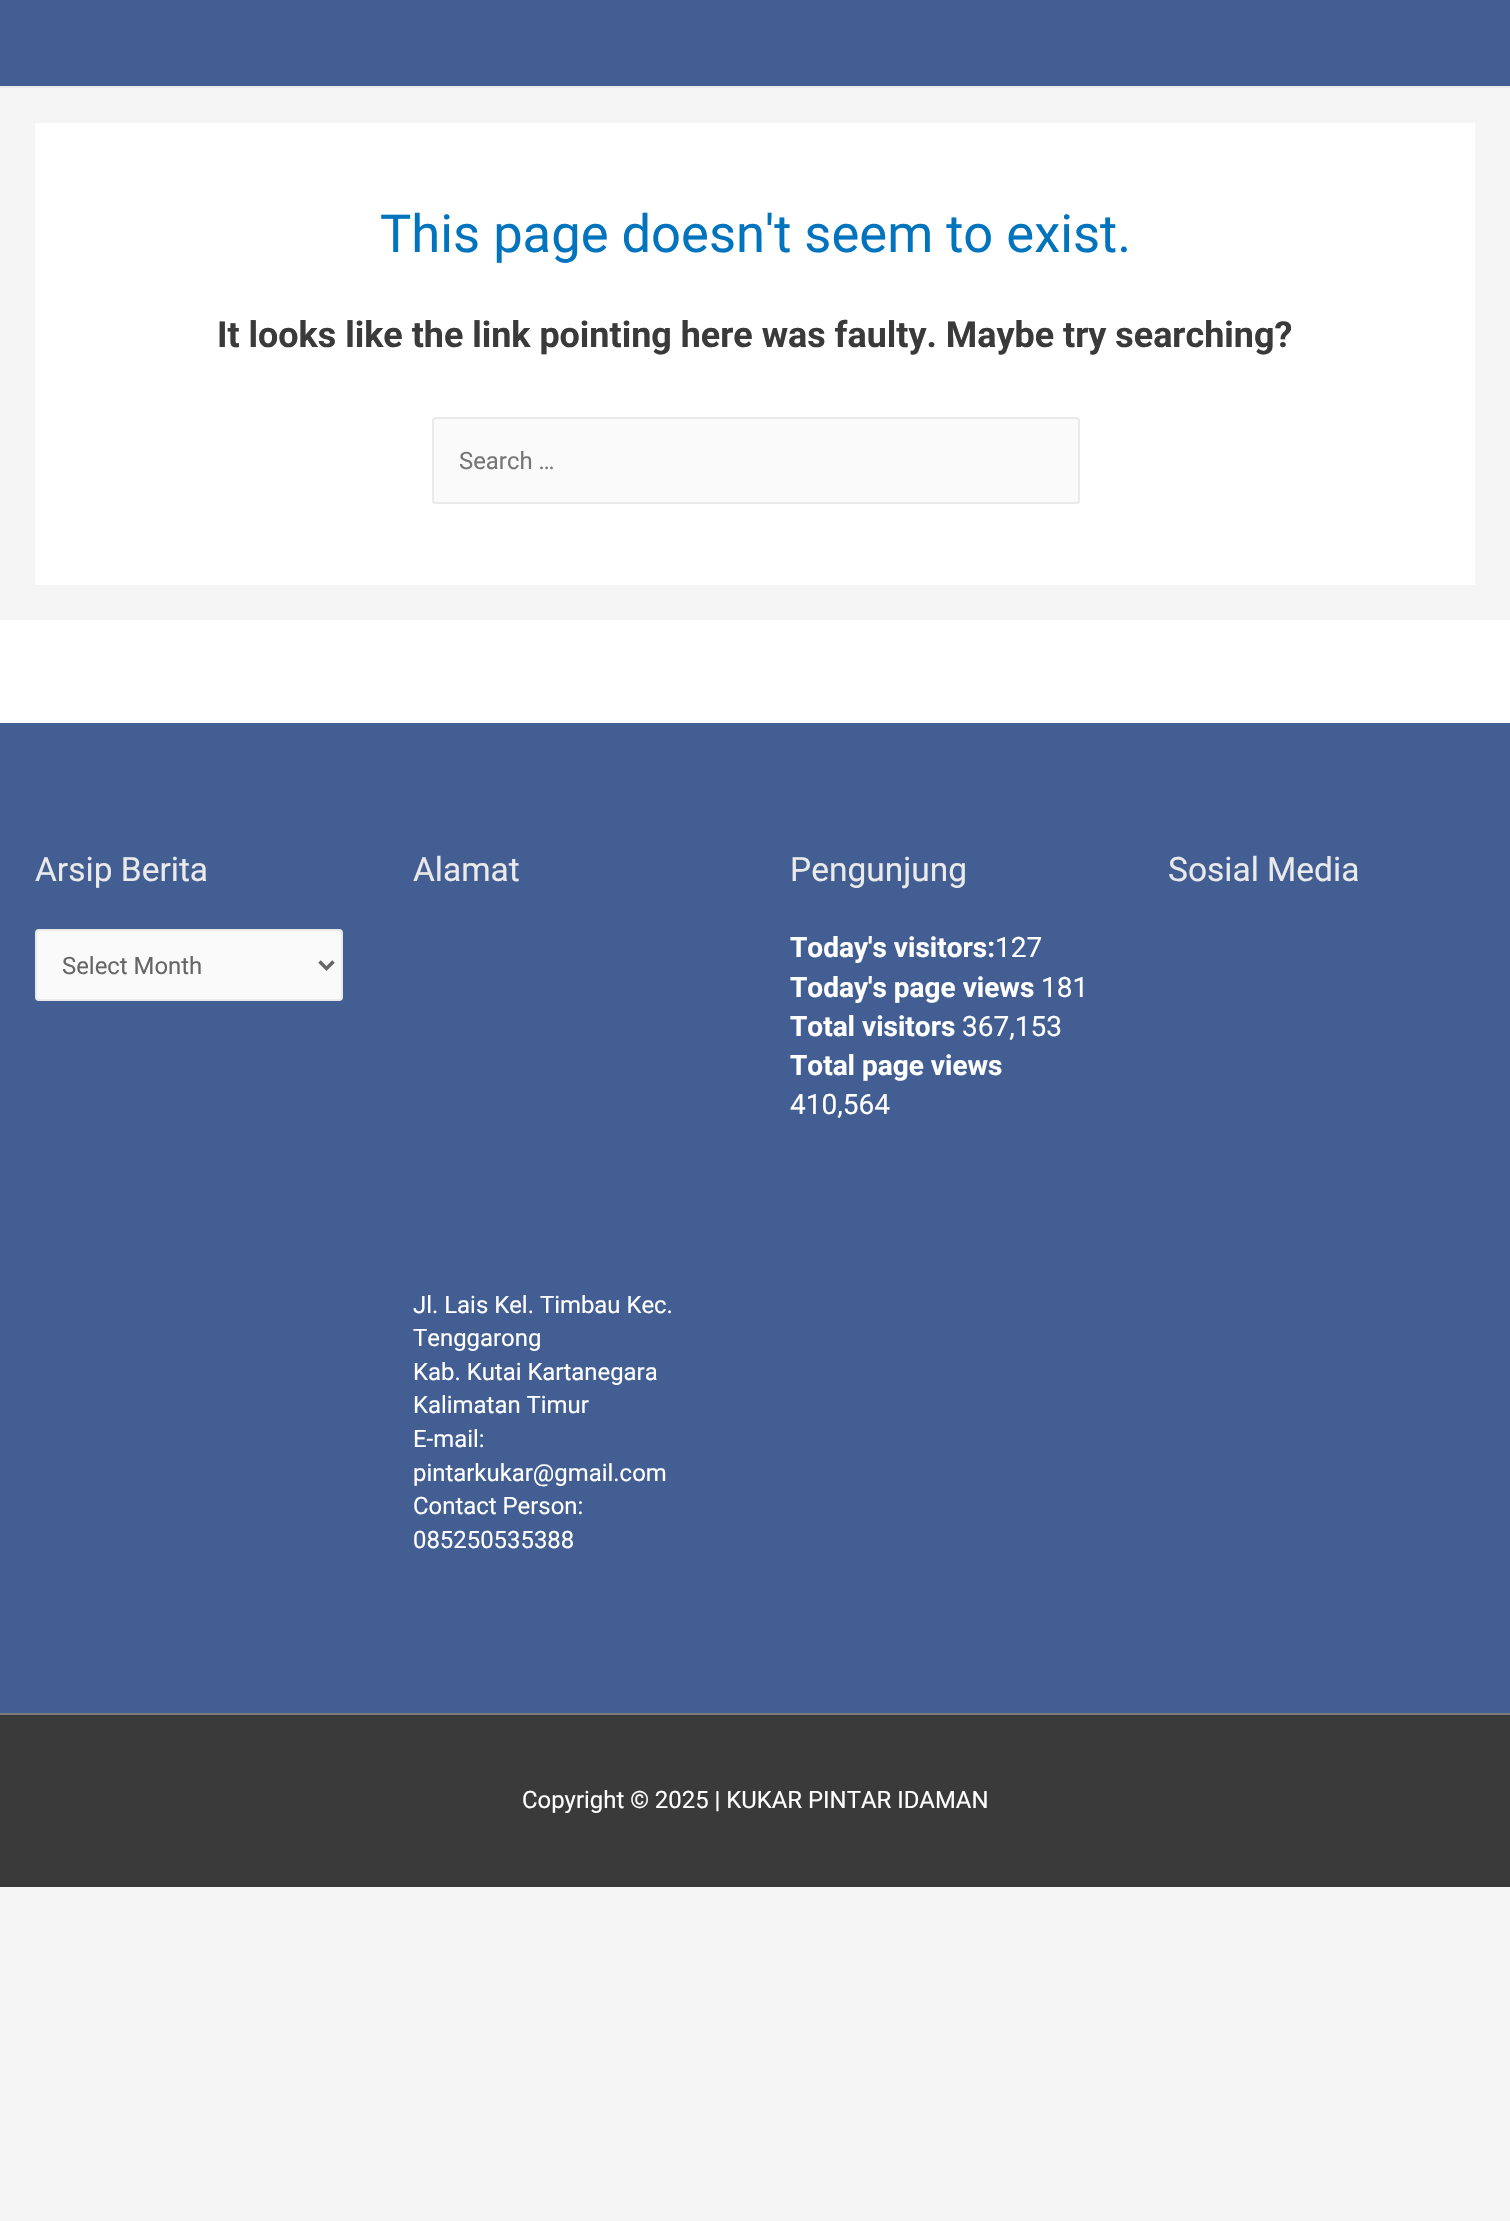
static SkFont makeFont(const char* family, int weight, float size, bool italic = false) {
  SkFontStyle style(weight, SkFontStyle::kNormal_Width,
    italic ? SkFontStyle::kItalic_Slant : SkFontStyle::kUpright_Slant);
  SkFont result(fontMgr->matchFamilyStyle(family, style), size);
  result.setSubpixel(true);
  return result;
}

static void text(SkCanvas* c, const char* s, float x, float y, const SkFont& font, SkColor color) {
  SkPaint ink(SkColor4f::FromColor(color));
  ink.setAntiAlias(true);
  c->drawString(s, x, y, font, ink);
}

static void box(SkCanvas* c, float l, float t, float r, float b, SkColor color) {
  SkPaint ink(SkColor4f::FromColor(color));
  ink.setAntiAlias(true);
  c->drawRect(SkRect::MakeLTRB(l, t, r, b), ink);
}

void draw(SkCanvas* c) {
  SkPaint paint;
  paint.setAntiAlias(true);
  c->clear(0xfff5f5f5);
  box(c, 0, 0, 1510, 86, 0xff425e92);
  box(c, 0, 86, 1510, 88, 0xffeaeaea);
  box(c, 35, 123, 1475, 585, 0xffffffff);
  SkFont face1 = makeFont("Roboto", 400, 52.5f);
  text(c, "This page doesn't seem to exist.", 380, 252, face1, 0xff0274be);
  SkFont face2 = makeFont("Roboto", 700, 35.9f);
  text(c, "It looks like the link pointing here was faulty. Maybe try searching?", 217, 347, face2, 0xff3a3a3a);
  paint.setColor(0xfffafafa);
  c->drawRoundRect(SkRect::MakeLTRB(433, 418, 1079, 503), 3, 3, paint);
  paint.setStyle(SkPaint::kStroke_Style);
  paint.setStrokeWidth(2);
  paint.setColor(0xffeaeaea);
  c->drawRoundRect(SkRect::MakeLTRB(433, 418, 1079, 503), 3, 3, paint);
  SkFont face3 = makeFont("Roboto", 400, 23.9f);
  text(c, "Search …", 459, 469, face3, 0xff757575);
  box(c, 0, 723, 1510, 1713, 0xff425e92);
  box(c, 0, 620, 1510, 723, 0xffffffff);
  SkFont face4 = makeFont("Roboto", 400, 33.5f);
  text(c, "Arsip Berita", 35, 881, face4, 0xffeaeaea);
  paint.setStyle(SkPaint::kFill_Style);
  paint.setColor(0xfffafafa);
  c->drawRoundRect(SkRect::MakeLTRB(36, 930, 342, 1000), 3, 3, paint);
  paint.setStyle(SkPaint::kStroke_Style);
  paint.setColor(0xffeaeaea);
  c->drawRoundRect(SkRect::MakeLTRB(36, 930, 342, 1000), 3, 3, paint);
  paint.setStrokeWidth(3.5f);
  paint.setColor(0xff666666);
  c->drawPath(SkPathBuilder().moveTo(319.5f, 961.5f).lineTo(326.5f, 968.5f).lineTo(333.5f, 961.5f).detach(), paint);
  text(c, "Select Month", 62, 974, face3, 0xff666666);
  text(c, "Alamat", 413, 881, face4, 0xffeaeaea);
  text(c, "Jl. Lais Kel. Timbau Kec.", 413, 1313, face3, 0xffffffff);
  text(c, "Tenggarong", 413, 1346, face3, 0xffffffff);
  text(c, "Kab. Kutai Kartanegara", 413, 1380, face3, 0xffffffff);
  text(c, "Kalimatan Timur", 413, 1413, face3, 0xffffffff);
  text(c, "E-mail:", 413, 1447, face3, 0xffffffff);
  text(c, "pintarkukar@gmail.com", 413, 1481, face3, 0xffffffff);
  text(c, "Contact Person:", 413, 1514, face3, 0xffffffff);
  text(c, "085250535388", 413, 1548, face3, 0xffffffff);
  text(c, "Pengunjung", 790, 881, face4, 0xffeaeaea);
  SkFont face5 = makeFont("Roboto", 700, 28);
  text(c, "Today's visitors:", 790, 957, face5, 0xffffffff);
  SkFont face6 = makeFont("Roboto", 400, 28);
  text(c, "127", 995, 957, face6, 0xffffffff);
  text(c, "Today's page views", 790, 997, face5, 0xffffffff);
  text(c, "181", 1041, 997, face6, 0xffffffff);
  text(c, "Total visitors", 790, 1036, face5, 0xffffffff);
  text(c, "367,153", 962, 1036, face6, 0xffffffff);
  text(c, "Total page views", 790, 1075, face5, 0xffffffff);
  text(c, "410,564", 790, 1114, face6, 0xffffffff);
  text(c, "Sosial Media", 1168, 881, face4, 0xffeaeaea);
  box(c, 0, 1713, 1510, 1715, 0xff7a7a7a);
  box(c, 0, 1715, 1510, 1887, 0xff3a3a3a);
  text(c, "Copyright © 2025 | KUKAR PINTAR IDAMAN", 522, 1808, face3, 0xffffffff);
}
